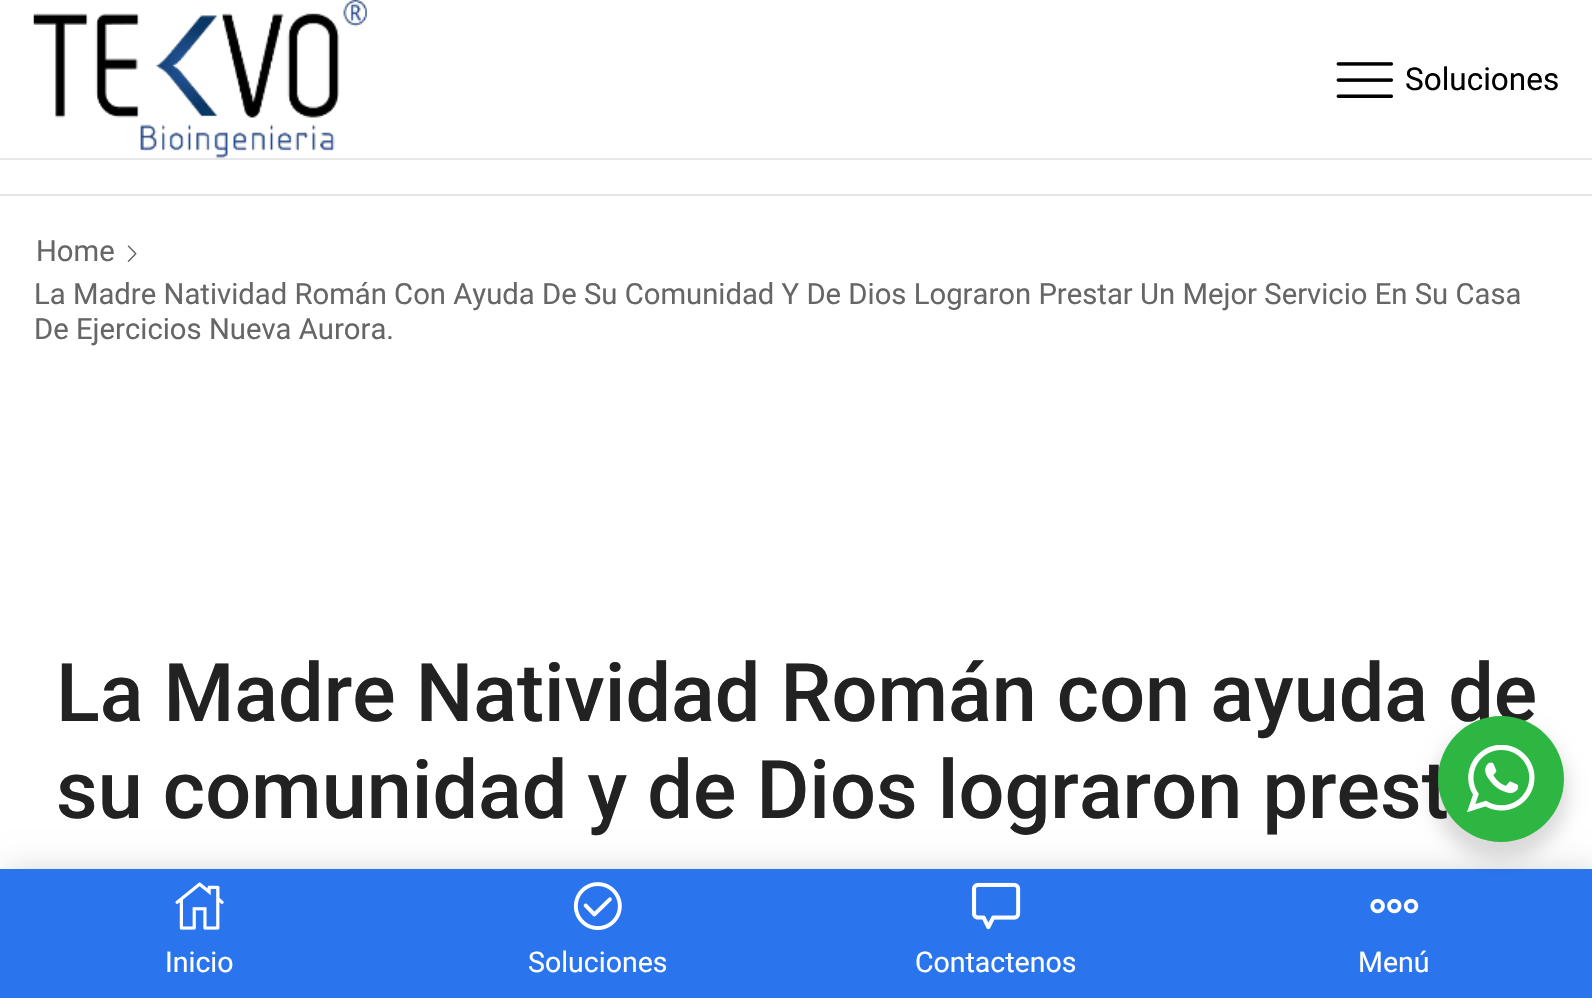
static SkFont makeFont(const char* family, int weight, float size, bool italic = false) {
  SkFontStyle style(weight, SkFontStyle::kNormal_Width,
    italic ? SkFontStyle::kItalic_Slant : SkFontStyle::kUpright_Slant);
  SkFont result(fontMgr->matchFamilyStyle(family, style), size);
  result.setSubpixel(true);
  return result;
}

static void text(SkCanvas* c, const char* s, float x, float y, const SkFont& font, SkColor color) {
  SkPaint ink(SkColor4f::FromColor(color));
  ink.setAntiAlias(true);
  c->drawString(s, x, y, font, ink);
}

static void box(SkCanvas* c, float l, float t, float r, float b, SkColor color) {
  SkPaint ink(SkColor4f::FromColor(color));
  ink.setAntiAlias(true);
  c->drawRect(SkRect::MakeLTRB(l, t, r, b), ink);
}

static void picture(SkCanvas* c, const char* path, float l, float t, float r, float b) {
  auto image = SkImages::DeferredFromEncodedData(SkData::MakeFromFileName(path));
  c->drawImageRect(image, SkRect::MakeLTRB(l, t, r, b), SkSamplingOptions());
}

void draw(SkCanvas* c) {
  SkPaint paint;
  paint.setAntiAlias(true);
  c->clear(0xffffffff);
  box(c, 0, 158, 1592, 160, 0xffe8e8e8);
  picture(c, "img_01.png", 33, 0, 367, 158);
  picture(c, "img_02.png", 1336, 62, 1393, 98);
  SkFont face1 = makeFont("Roboto", 400, 31.5f);
  text(c, "Soluciones", 1405, 90, face1, 0xff000000);
  box(c, 0, 194, 1592, 196, 0xffe6e6e6);
  SkFont face2 = makeFont("Roboto", 400, 29.25f);
  text(c, "Home", 36, 261, face2, 0xff666666);
  picture(c, "img_03.png", 127, 245, 137, 262);
  text(c, "La Madre Natividad Román Con Ayuda De Su Comunidad Y De Dios Lograron Prestar Un Mejor Servicio En Su Casa", 34, 304, face2, 0xff666666);
  text(c, "De Ejercicios Nueva Aurora.", 34, 339, face2, 0xff666666);
  SkFont face3 = makeFont("Roboto", 500, 81);
  text(c, "La Madre Natividad Román con ayuda de", 56, 721, face3, 0xff222222);
  text(c, "su comunidad y de Dios lograron prest", 56, 818, face3, 0xff222222);
  paint.setColor(0x26000000);
  paint.setMaskFilter(SkMaskFilter::MakeBlur(kNormal_SkBlurStyle, 13.5f));
  c->drawRect(SkRect::MakeLTRB(5, 869, 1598, 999), paint);
  paint.setMaskFilter(nullptr);
  box(c, 0, 869, 1592, 998, 0xff2a74ed);
  picture(c, "img_04.png", 175, 882, 224, 930);
  SkFont face4 = makeFont("Roboto", 400, 28.5f);
  text(c, "Inicio", 165, 972, face4, 0xffffffff);
  picture(c, "img_05.png", 573, 882, 622, 930);
  text(c, "Soluciones", 528, 972, face4, 0xffffffff);
  picture(c, "img_06.png", 972, 882, 1021, 930);
  text(c, "Contactenos", 915, 972, face4, 0xffffffff);
  picture(c, "img_07.png", 1370, 898, 1419, 914);
  text(c, "Menú", 1358, 972, face4, 0xffffffff);
  paint.setColor(0x24000000);
  paint.setMaskFilter(SkMaskFilter::MakeBlur(kNormal_SkBlurStyle, 9));
  c->drawRoundRect(SkRect::MakeLTRB(1433, 725, 1568, 860), 67.5f, 67.5f, paint);
  paint.setMaskFilter(nullptr);
  paint.setColor(0xff2db742);
  c->drawCircle(1501, 779, 63, paint);
  picture(c, "img_08.png", 1467, 745, 1535, 812);
}
